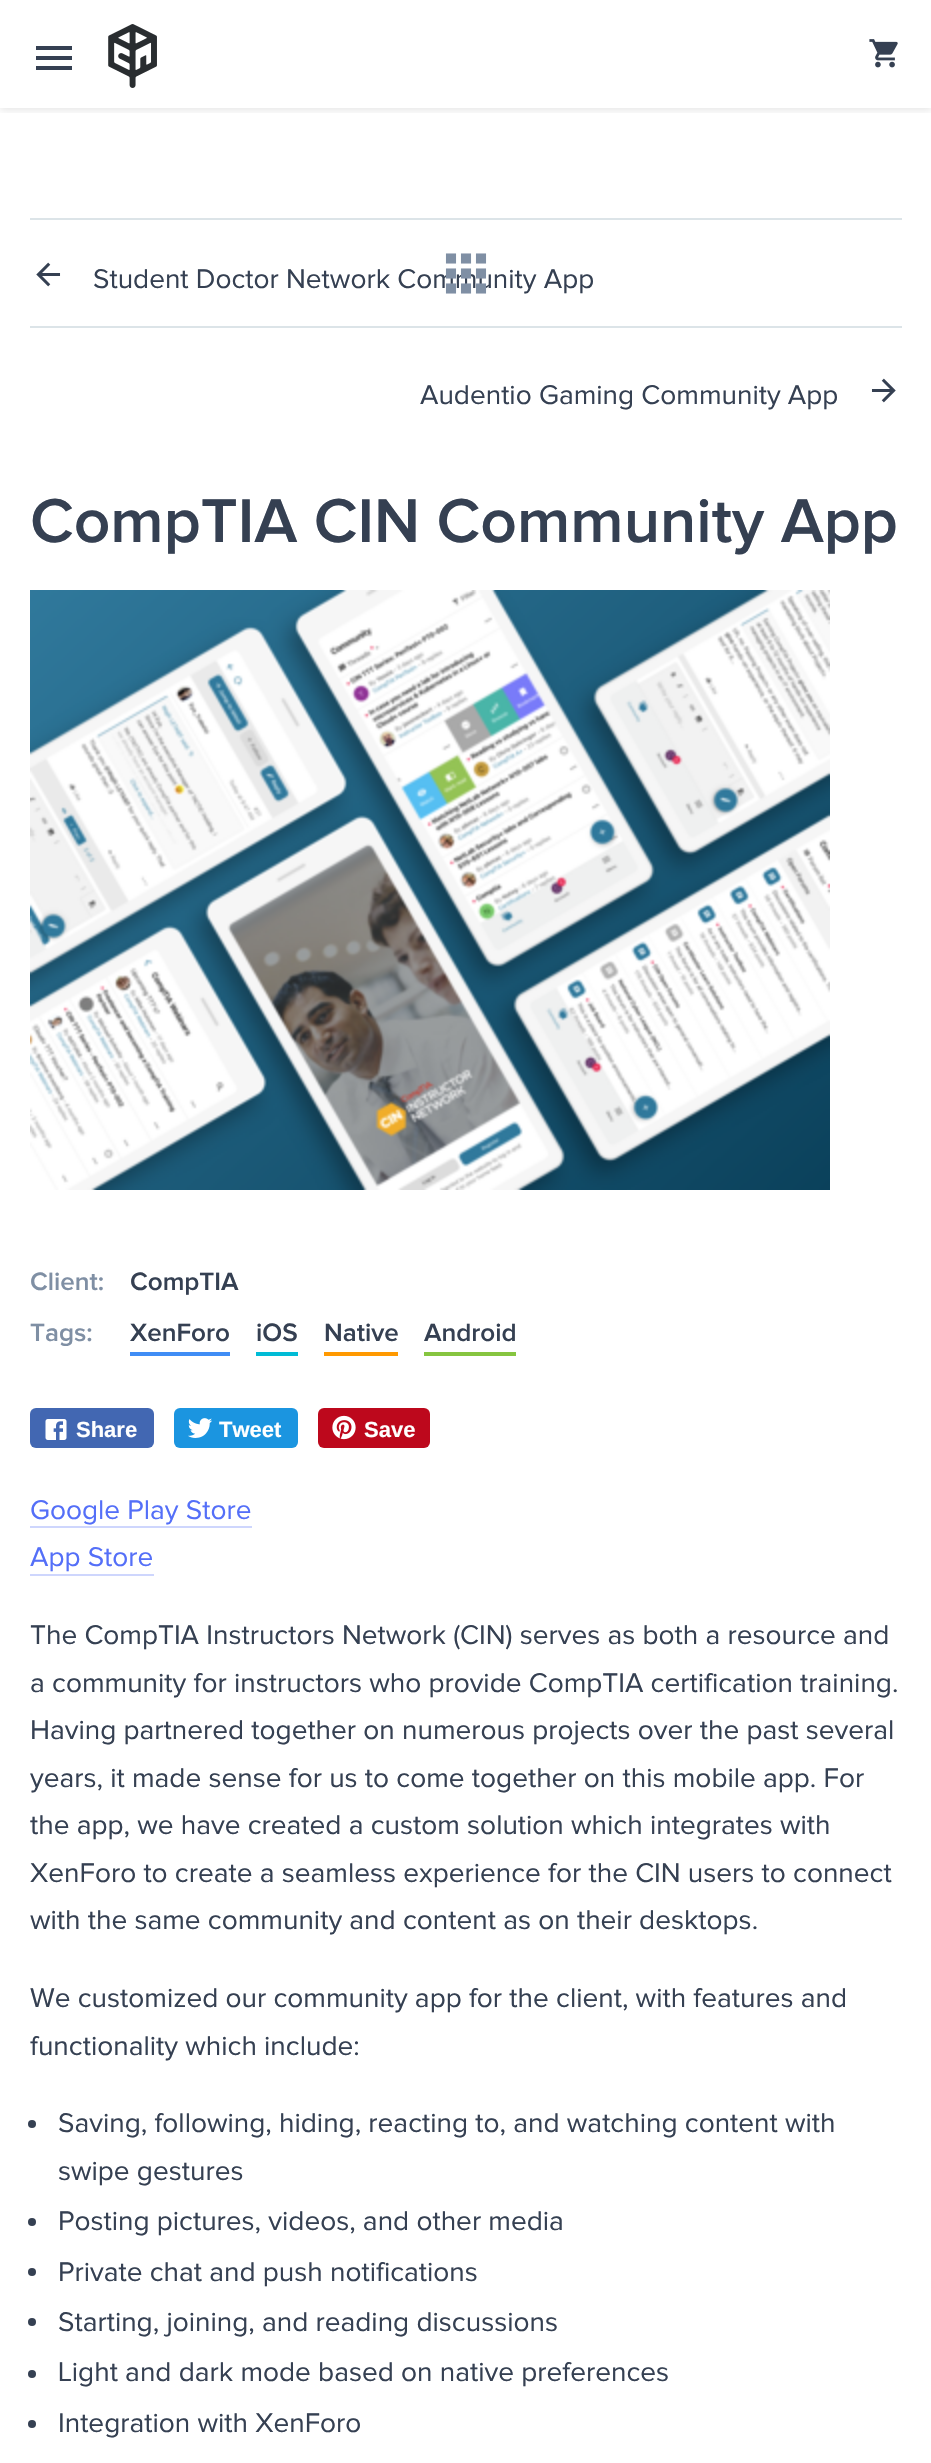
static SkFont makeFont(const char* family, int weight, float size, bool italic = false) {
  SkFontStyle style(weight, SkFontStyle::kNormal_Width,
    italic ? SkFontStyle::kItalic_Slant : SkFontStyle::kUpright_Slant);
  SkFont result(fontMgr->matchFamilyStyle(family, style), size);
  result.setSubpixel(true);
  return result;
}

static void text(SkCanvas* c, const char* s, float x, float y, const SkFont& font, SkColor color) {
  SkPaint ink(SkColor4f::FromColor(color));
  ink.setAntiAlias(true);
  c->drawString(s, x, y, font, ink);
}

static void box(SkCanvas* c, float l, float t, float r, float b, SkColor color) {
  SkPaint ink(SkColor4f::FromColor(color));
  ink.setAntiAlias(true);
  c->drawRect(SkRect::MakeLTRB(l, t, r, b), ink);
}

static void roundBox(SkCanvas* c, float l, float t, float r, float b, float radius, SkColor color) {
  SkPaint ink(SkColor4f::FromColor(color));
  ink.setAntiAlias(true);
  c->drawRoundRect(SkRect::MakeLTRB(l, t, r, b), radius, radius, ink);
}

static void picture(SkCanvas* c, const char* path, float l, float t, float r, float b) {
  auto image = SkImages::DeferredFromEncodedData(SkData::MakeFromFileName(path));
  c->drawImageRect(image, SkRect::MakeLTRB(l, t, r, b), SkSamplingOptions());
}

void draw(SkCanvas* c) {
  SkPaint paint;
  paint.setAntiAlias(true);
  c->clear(0xffffffff);
  c->save();
  c->clipRect(SkRect::MakeLTRB(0, 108, 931, 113));
  paint.setColor(0x1a000000);
  paint.setMaskFilter(SkMaskFilter::MakeBlur(kNormal_SkBlurStyle, 4));
  c->drawRect(SkRect::MakeLTRB(0, 2, 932, 110), paint);
  paint.setMaskFilter(nullptr);
  c->restore();
  paint.setColor(0xff354052);
  c->drawPath(SkPathBuilder().moveTo(36, 46).lineTo(72, 46).lineTo(72, 50).lineTo(36, 50).close().moveTo(36, 56).lineTo(72, 56).lineTo(72, 60).lineTo(36, 60).close().moveTo(36, 66).lineTo(72, 66).lineTo(72, 70).lineTo(36, 70).close().detach(), paint);
  picture(c, "img_01.png", 108, 24, 157, 88);
  picture(c, "img_02.png", 869, 39, 898, 68);
  box(c, 30, 218, 902, 220, 0xffdce4e8);
  box(c, 30, 326, 902, 328, 0xffdce4e8);
  SkFont face1 = makeFont("Proxima Nova", 400, 28);
  text(c, "Student Doctor Network Community App", 93, 288, face1, 0xff354052);
  picture(c, "img_03.png", 445, 253, 487, 294);
  picture(c, "img_04.png", 36, 262, 61, 287);
  text(c, "Audentio Gaming Community App", 420, 404, face1, 0xff354052);
  picture(c, "img_05.png", 871, 378, 896, 403);
  SkFont face2 = makeFont("Proxima Nova", 600, 64);
  text(c, "CompTIA CIN Community App", 30, 542, face2, 0xff354052);
  picture(c, "img_06.png", 30, 590, 830, 1190);
  SkFont face3 = makeFont("Proxima Nova", 600, 26);
  text(c, "Client:", 30, 1290, face3, 0xff7f8fa4);
  text(c, "CompTIA", 130, 1290, face3, 0xff354052);
  text(c, "Tags:", 30, 1341, face3, 0xff7f8fa4);
  box(c, 130, 1352, 230, 1356, 0xff408df5);
  text(c, "XenForo", 130, 1341, face3, 0xff354052);
  box(c, 256, 1352, 298, 1356, 0xff00bcd6);
  text(c, "iOS", 256, 1341, face3, 0xff354052);
  box(c, 324, 1352, 398, 1356, 0xffff9900);
  text(c, "Native", 324, 1341, face3, 0xff354052);
  box(c, 424, 1352, 516, 1356, 0xff86c540);
  text(c, "Android", 424, 1341, face3, 0xff354052);
  roundBox(c, 30, 1408, 154, 1448, 6, 0xff4267b2);
  picture(c, "img_07.png", 45, 1419, 67, 1440);
  SkFont face4 = makeFont("Liberation Sans", 700, 22);
  text(c, "Share", 76, 1437, face4, 0xffffffff);
  roundBox(c, 174, 1408, 298, 1448, 6, 0xff1b95e0);
  picture(c, "img_08.png", 188, 1418, 212, 1438);
  text(c, "Tweet", 219, 1437, face4, 0xffffffff);
  roundBox(c, 318, 1408, 430, 1448, 6, 0xffbd081c);
  picture(c, "img_09.png", 332, 1415, 356, 1440);
  text(c, "Save", 364, 1437, face4, 0xffffffff);
  text(c, "Google Play Store", 30, 1519, face1, 0xff546ff8);
  box(c, 30, 1526, 252, 1528, 0xffced6fd);
  text(c, "App Store", 30, 1566, face1, 0xff546ff8);
  box(c, 30, 1574, 154, 1576, 0xffced6fd);
  text(c, "The CompTIA Instructors Network (CIN) serves as both a resource and", 30, 1644, face1, 0xff354052);
  text(c, "a community for instructors who provide CompTIA certification training.", 30, 1692, face1, 0xff354052);
  text(c, "Having partnered together on numerous projects over the past several", 30, 1739, face1, 0xff354052);
  text(c, "years, it made sense for us to come together on this mobile app. For", 30, 1787, face1, 0xff354052);
  text(c, "the app, we have created a custom solution which integrates with", 30, 1834, face1, 0xff354052);
  text(c, "XenForo to create a seamless experience for the CIN users to connect", 30, 1882, face1, 0xff354052);
  text(c, "with the same community and content as on their desktops.", 30, 1929, face1, 0xff354052);
  text(c, "We customized our community app for the client, with features and", 30, 2007, face1, 0xff354052);
  text(c, "functionality which include:", 30, 2055, face1, 0xff354052);
  c->drawCircle(32, 2124, 4, paint);
  text(c, "Saving, following, hiding, reacting to, and watching content with", 58, 2132, face1, 0xff354052);
  text(c, "swipe gestures", 58, 2180, face1, 0xff354052);
  c->drawCircle(32, 2222, 4, paint);
  text(c, "Posting pictures, videos, and other media", 58, 2230, face1, 0xff354052);
  c->drawCircle(32, 2272, 4, paint);
  text(c, "Private chat and push notifications", 58, 2281, face1, 0xff354052);
  c->drawCircle(32, 2322, 4, paint);
  text(c, "Starting, joining, and reading discussions", 58, 2331, face1, 0xff354052);
  c->drawCircle(32, 2374, 4, paint);
  text(c, "Light and dark mode based on native preferences", 58, 2381, face1, 0xff354052);
  c->drawCircle(32, 2424, 4, paint);
  text(c, "Integration with XenForo", 58, 2432, face1, 0xff354052);
}
